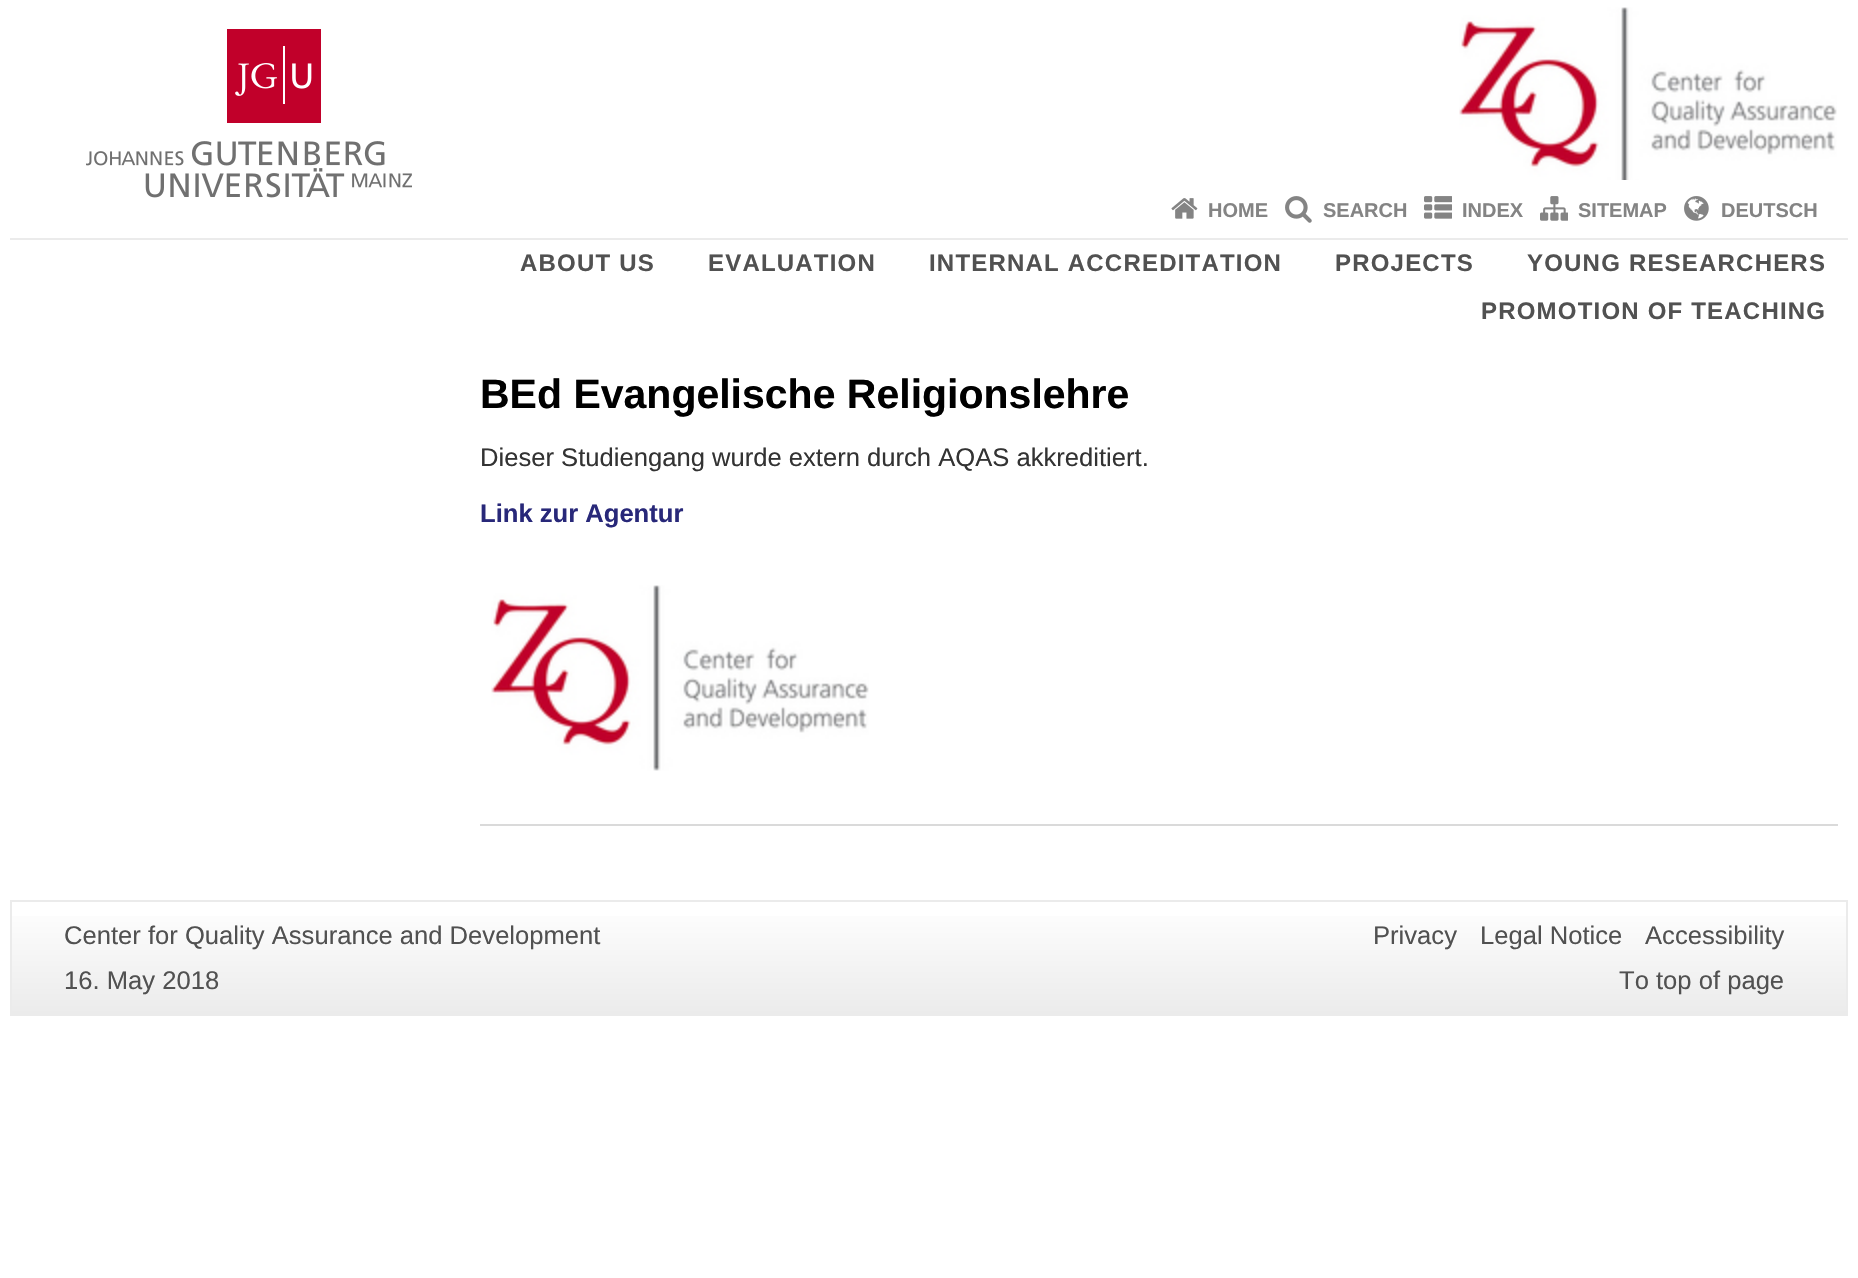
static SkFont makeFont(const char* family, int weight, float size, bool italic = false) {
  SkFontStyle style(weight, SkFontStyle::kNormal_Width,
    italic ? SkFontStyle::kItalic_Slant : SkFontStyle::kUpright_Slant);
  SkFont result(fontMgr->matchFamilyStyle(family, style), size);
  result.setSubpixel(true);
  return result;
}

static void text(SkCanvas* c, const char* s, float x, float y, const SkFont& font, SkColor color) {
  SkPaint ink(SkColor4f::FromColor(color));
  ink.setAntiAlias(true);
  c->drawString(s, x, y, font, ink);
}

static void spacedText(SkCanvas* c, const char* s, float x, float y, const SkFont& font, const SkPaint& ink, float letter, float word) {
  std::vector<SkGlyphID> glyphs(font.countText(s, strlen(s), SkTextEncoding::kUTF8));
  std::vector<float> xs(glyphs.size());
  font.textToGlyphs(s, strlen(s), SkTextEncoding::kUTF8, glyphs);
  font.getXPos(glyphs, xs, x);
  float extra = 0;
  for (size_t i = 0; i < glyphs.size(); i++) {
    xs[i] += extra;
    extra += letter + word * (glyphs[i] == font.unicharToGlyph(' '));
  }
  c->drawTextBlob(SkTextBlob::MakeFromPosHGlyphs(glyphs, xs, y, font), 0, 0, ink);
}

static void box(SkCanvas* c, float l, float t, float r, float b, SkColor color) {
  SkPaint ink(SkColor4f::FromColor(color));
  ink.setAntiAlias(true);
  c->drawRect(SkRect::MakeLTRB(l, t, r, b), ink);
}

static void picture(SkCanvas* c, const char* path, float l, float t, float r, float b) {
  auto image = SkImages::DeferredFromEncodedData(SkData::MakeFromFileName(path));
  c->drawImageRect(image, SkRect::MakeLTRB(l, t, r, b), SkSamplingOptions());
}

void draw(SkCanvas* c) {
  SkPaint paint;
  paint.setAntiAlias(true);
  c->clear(0xffffffff);
  picture(c, "img_01.png", 86, 29, 412, 198);
  picture(c, "img_02.png", 1459, 7, 1837, 180);
  picture(c, "img_03.png", 1171, 198, 1198, 219);
  SkFont face1 = makeFont("Liberation Sans", 700, 20);
  text(c, "HOME", 1208, 217, face1, 0xff848484);
  picture(c, "img_04.png", 1285, 196, 1312, 223);
  text(c, "SEARCH", 1323, 217, face1, 0xff848484);
  picture(c, "img_05.png", 1424, 196, 1452, 219);
  text(c, "INDEX", 1462, 217, face1, 0xff848484);
  picture(c, "img_06.png", 1540, 196, 1568, 221);
  text(c, "SITEMAP", 1578, 217, face1, 0xff848484);
  picture(c, "img_07.png", 1684, 196, 1709, 221);
  text(c, "DEUTSCH", 1721, 217, face1, 0xff848484);
  box(c, 10, 238, 1848, 240, 0xffebebeb);
  SkFont face2 = makeFont("Liberation Sans", 700, 24);
  paint.setColor(0xff515151);
  spacedText(c, "ABOUT US", 520, 271, face2, paint, 1.2f, 0);
  spacedText(c, "EVALUATION", 708, 271, face2, paint, 1.2f, 0);
  spacedText(c, "INTERNAL ACCREDITATION", 929, 271, face2, paint, 1.2f, 0);
  spacedText(c, "PROJECTS", 1335, 271, face2, paint, 1.2f, 0);
  spacedText(c, "YOUNG RESEARCHERS", 1527, 271, face2, paint, 1.2f, 0);
  spacedText(c, "PROMOTION OF TEACHING", 1481, 319, face2, paint, 1.2f, 0);
  SkFont face3 = makeFont("Liberation Sans", 700, 41);
  text(c, "BEd Evangelische Religionslehre", 480, 408, face3, 0xff000000);
  SkFont face4 = makeFont("Liberation Sans", 400, 25.6f);
  text(c, "Dieser Studiengang wurde extern durch AQAS akkreditiert.", 480, 466, face4, 0xff333333);
  SkFont face5 = makeFont("Liberation Sans", 700, 25.6f);
  text(c, "Link zur Agentur", 480, 522, face5, 0xff282879);
  box(c, 480, 824, 1838, 826, 0xffdadada);
  picture(c, "img_08.png", 491, 585, 869, 771);
  {
    const SkColor colors[] = {0xffebebeb, 0xffffffff};
    const float stops[] = {0, 1};
    const SkPoint ends[] = {{929, 1014}, {929, 902}};
    paint.setShader(SkGradientShader::MakeLinear(ends, colors, stops, 2, SkTileMode::kClamp));
    paint.setAlpha(255);
  }
  c->drawRect(SkRect::MakeLTRB(12, 916, 1846, 1014), paint);
  paint.setStyle(SkPaint::kStroke_Style);
  paint.setStrokeWidth(2);
  paint.setShader(nullptr);
  paint.setColor(0xffebebeb);
  c->drawRect(SkRect::MakeLTRB(11, 901, 1847, 1015), paint);
  text(c, "Center for Quality Assurance and Development", 64, 944, face4, 0xff515151);
  text(c, "16. May 2018", 64, 989, face4, 0xff515151);
  text(c, "Privacy", 1373, 944, face4, 0xff515151);
  text(c, "Legal Notice", 1480, 944, face4, 0xff515151);
  text(c, "Accessibility", 1645, 944, face4, 0xff515151);
  text(c, "To top of page", 1619, 989, face4, 0xff515151);
}
